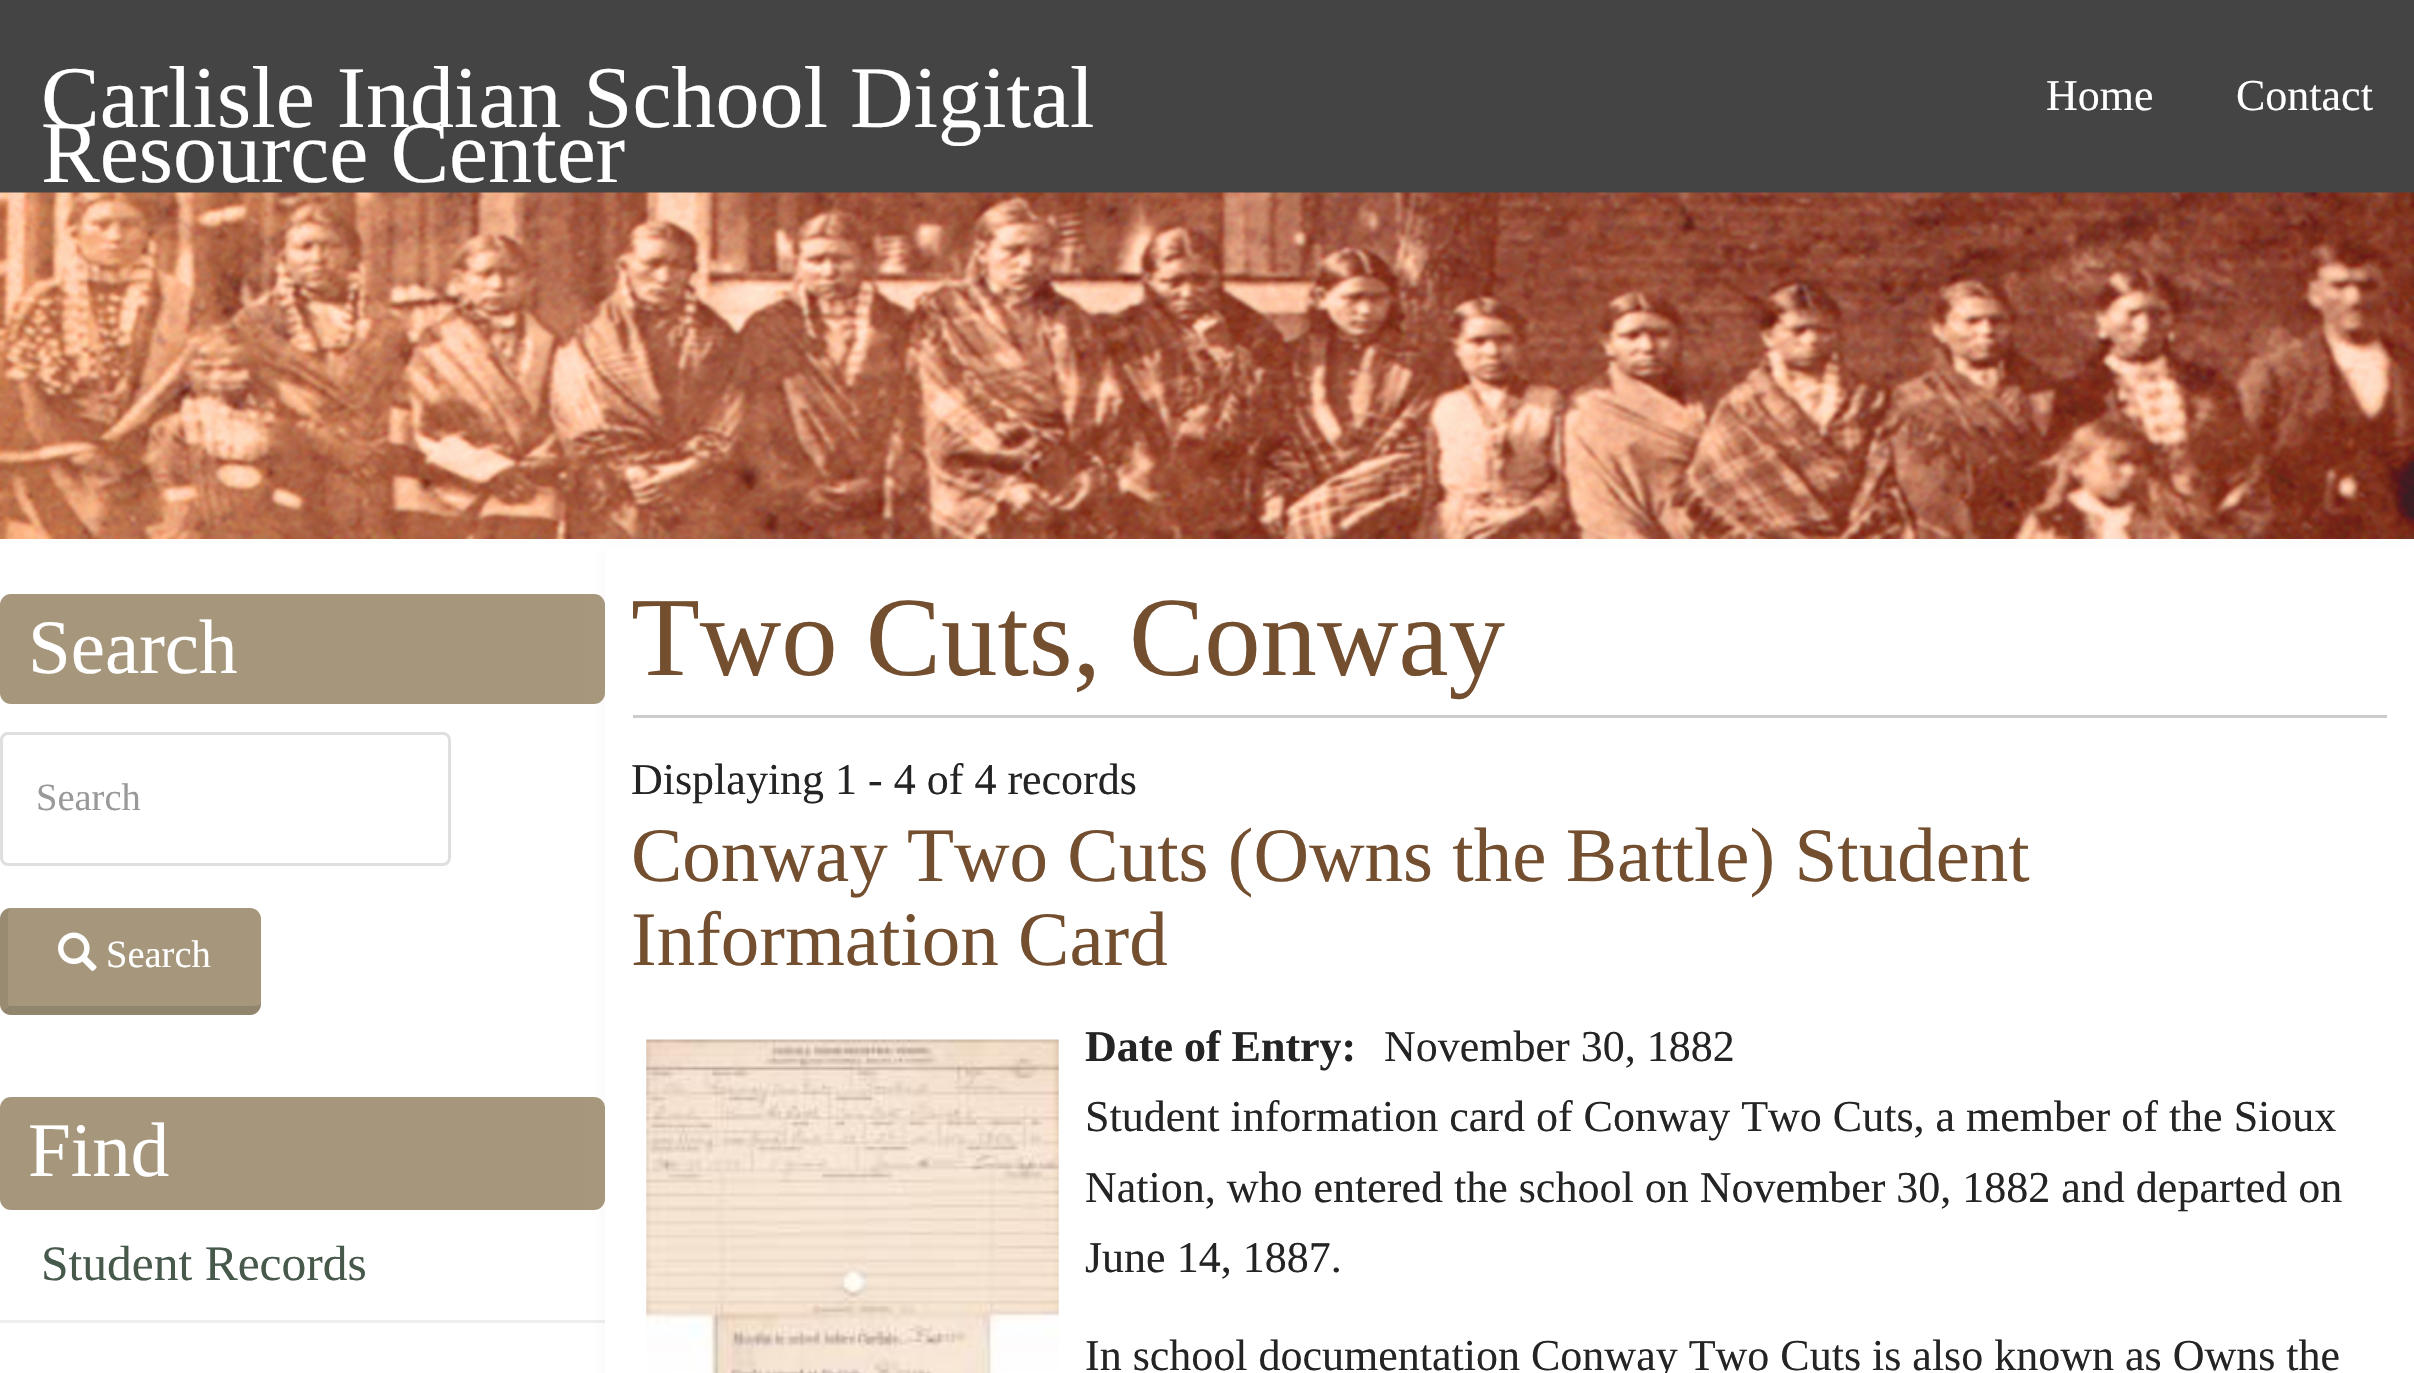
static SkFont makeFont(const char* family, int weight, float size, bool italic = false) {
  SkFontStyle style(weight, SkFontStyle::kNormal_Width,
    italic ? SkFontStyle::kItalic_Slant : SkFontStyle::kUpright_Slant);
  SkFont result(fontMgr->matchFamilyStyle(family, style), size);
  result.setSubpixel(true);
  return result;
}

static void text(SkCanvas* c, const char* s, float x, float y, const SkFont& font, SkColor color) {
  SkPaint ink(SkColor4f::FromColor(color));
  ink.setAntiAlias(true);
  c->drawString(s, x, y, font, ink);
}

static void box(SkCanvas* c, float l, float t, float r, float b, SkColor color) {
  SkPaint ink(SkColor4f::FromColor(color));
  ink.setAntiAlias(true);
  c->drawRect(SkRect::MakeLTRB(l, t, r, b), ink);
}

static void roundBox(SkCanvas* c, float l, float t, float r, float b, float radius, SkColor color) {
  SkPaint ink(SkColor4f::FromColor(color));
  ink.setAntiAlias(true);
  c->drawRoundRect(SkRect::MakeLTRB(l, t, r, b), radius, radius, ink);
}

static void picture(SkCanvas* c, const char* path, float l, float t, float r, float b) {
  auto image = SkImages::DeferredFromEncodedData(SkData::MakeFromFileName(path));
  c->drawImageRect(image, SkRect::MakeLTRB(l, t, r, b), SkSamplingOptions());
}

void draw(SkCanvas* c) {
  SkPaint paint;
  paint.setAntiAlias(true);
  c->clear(0xffffffff);
  box(c, 0, 0, 2414, 193, 0xff444444);
  SkFont face1 = makeFont("Liberation Serif", 400, 88);
  text(c, "Carlisle Indian School Digital", 41, 127, face1, 0xffffffff);
  text(c, "Resource Center", 41, 182, face1, 0xffffffff);
  SkFont face2 = makeFont("Liberation Serif", 400, 44);
  text(c, "Home", 2046, 110, face2, 0xffffffff);
  text(c, "Contact", 2236, 110, face2, 0xffffffff);
  picture(c, "img_01.png", 0, 192, 2414, 539);
  roundBox(c, 0, 594, 605, 704, 11, 0xffa6977c);
  SkFont face3 = makeFont("Liberation Serif", 400, 77);
  text(c, "Search", 28, 673, face3, 0xffffffff);
  paint.setStyle(SkPaint::kStroke_Style);
  paint.setStrokeWidth(3);
  paint.setColor(0xffdfdfdf);
  c->drawRoundRect(SkRect::MakeLTRB(1.5f, 733.5f, 449.5f, 864.5f), 6.5f, 6.5f, paint);
  SkFont face4 = makeFont("Liberation Serif", 400, 38.5f);
  text(c, "Search", 36, 810, face4, 0xff999999);
  roundBox(c, 0, 908, 261, 1015, 11, 0xffa6977c);
  paint.setStyle(SkPaint::kFill_Style);
  paint.setColor(0x1f000000);
  c->drawPath(SkPathBuilder().moveTo(252, 1015).cubicTo(257, 1014, 261, 1009, 261, 1004).cubicTo(261, 1005, 256, 1006, 250, 1006).lineTo(11, 1006).lineTo(9, 1006).lineTo(3, 1012).cubicTo(5, 1013, 7, 1014, 9, 1015).close().detach(), paint);
  paint.setColor(0x14000000);
  c->drawPath(SkPathBuilder().moveTo(11, 908).cubicTo(8, 908, 8, 916, 8, 918).lineTo(8, 1005).lineTo(9, 1006).lineTo(3, 1012).cubicTo(1, 1010, 0, 1007, 0, 1004).lineTo(0, 918).cubicTo(0, 912, 5, 908, 11, 908).close().detach(), paint);
  picture(c, "img_02.png", 58, 932, 97, 971);
  text(c, "Search", 106, 967, face4, 0xffffffff);
  roundBox(c, 0, 1097, 605, 1210, 11, 0xffa6977c);
  text(c, "Find", 28, 1176, face3, 0xffffffff);
  box(c, 0, 1320, 605, 1323, 0xffeeeeee);
  SkFont face5 = makeFont("Liberation Serif", 400, 49.5f);
  text(c, "Student Records", 41, 1280, face5, 0xff46594b);
  paint.setColor(0x1aa6977c);
  paint.setMaskFilter(SkMaskFilter::MakeBlur(kNormal_SkBlurStyle, 7));
  c->drawRect(SkRect::MakeLTRB(605, 553, 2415, 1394), paint);
  paint.setMaskFilter(nullptr);
  box(c, 605, 547, 2414, 1373, 0xffffffff);
  box(c, 633, 715, 2387, 718, 0xffcccccc);
  SkFont face6 = makeFont("Liberation Serif", 400, 112.75f);
  text(c, "Two Cuts, Conway", 631, 675, face6, 0xff734f30);
  text(c, "Displaying 1 - 4 of 4 records", 631, 794, face2, 0xff242424);
  text(c, "Conway Two Cuts (Owns the Battle) Student", 631, 881, face3, 0xff734f30);
  text(c, "Information Card", 631, 965, face3, 0xff734f30);
  picture(c, "img_03.png", 646, 1039, 1059, 1373);
  SkFont face7 = makeFont("Liberation Serif", 700, 44);
  text(c, "Date of Entry:", 1085, 1061, face7, 0xff242424);
  text(c, "November 30, 1882", 1384, 1061, face2, 0xff242424);
  text(c, "Student information card of Conway Two Cuts, a member of the Sioux", 1085, 1131, face2, 0xff242424);
  text(c, "Nation, who entered the school on November 30, 1882 and departed on", 1085, 1202, face2, 0xff242424);
  text(c, "June 14, 1887.", 1085, 1272, face2, 0xff242424);
  text(c, "In school documentation Conway Two Cuts is also known as Owns the", 1085, 1370, face2, 0xff242424);
}
